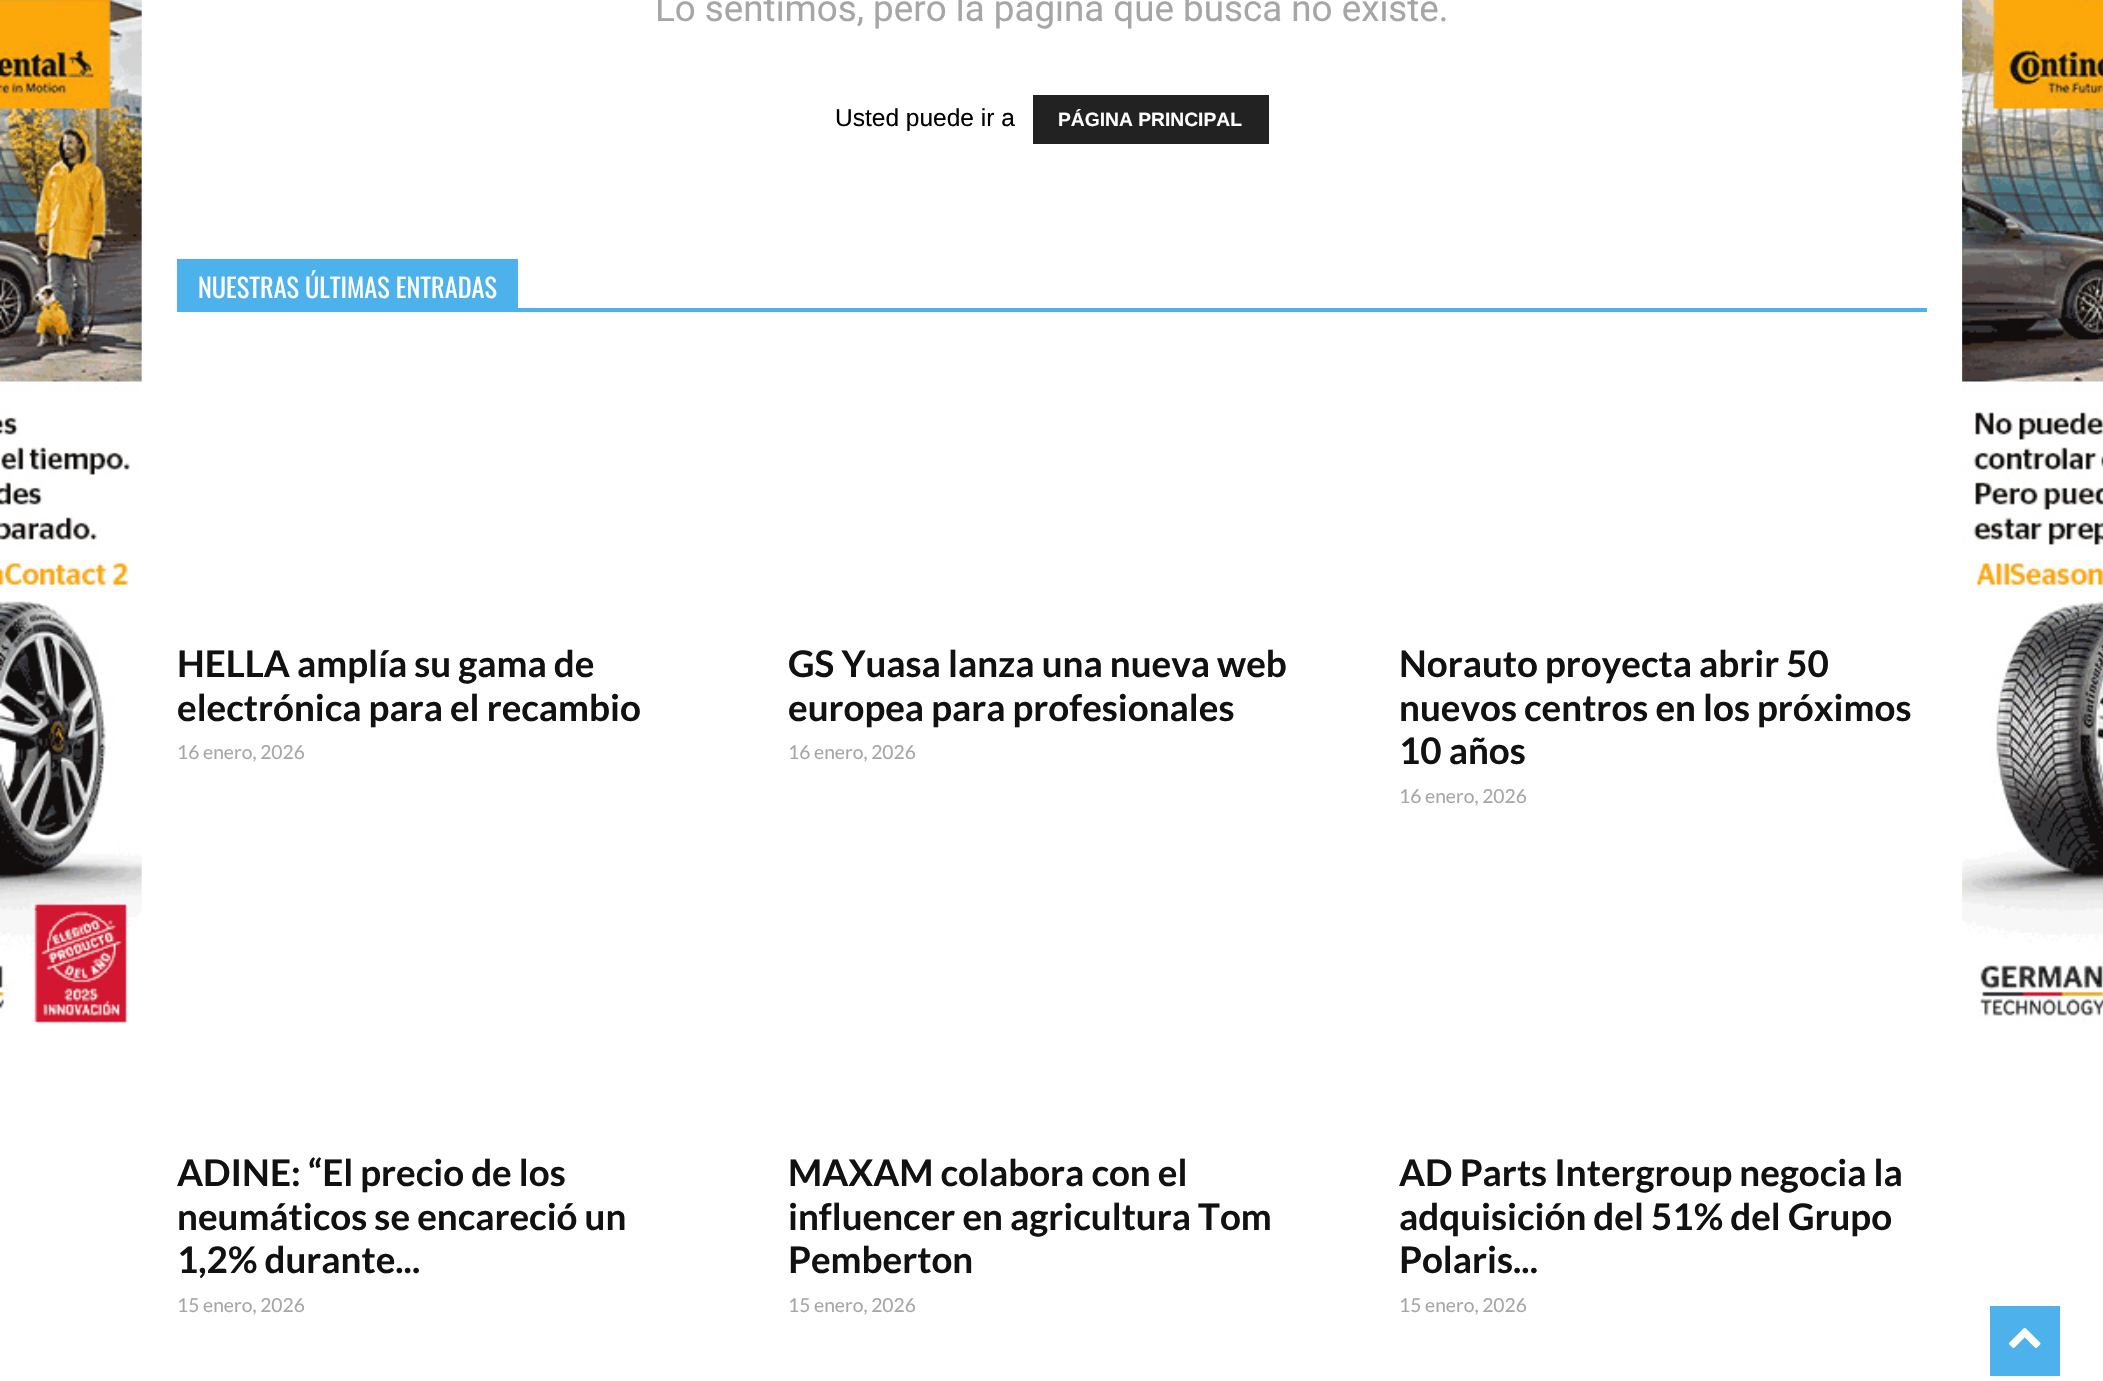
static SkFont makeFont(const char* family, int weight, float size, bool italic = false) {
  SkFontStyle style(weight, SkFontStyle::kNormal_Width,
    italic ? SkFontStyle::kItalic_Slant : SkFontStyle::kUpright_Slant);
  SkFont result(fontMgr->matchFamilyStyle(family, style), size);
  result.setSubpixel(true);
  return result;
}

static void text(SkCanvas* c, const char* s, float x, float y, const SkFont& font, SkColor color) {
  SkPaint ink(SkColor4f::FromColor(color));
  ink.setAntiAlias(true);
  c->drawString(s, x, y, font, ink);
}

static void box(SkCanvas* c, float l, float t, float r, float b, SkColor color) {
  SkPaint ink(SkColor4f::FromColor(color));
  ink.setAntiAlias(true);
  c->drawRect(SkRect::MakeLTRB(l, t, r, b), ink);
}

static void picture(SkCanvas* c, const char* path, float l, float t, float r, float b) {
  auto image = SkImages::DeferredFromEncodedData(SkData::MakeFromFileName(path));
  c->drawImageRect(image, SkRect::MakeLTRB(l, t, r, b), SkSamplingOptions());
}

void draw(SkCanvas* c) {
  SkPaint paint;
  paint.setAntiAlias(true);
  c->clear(0xffffffff);
  picture(c, "img_01.png", 0, 0, 2103, 1023);
  box(c, 142, 0, 1962, 920, 0xffffffff);
  SkFont face1 = makeFont("Roboto", 400, 36.75f);
  text(c, "Lo sentimos, pero la página que busca no existe.", 655, 21, face1, 0xffa6a6a6);
  SkFont face2 = makeFont("Liberation Sans", 400, 24.5f);
  text(c, "Usted puede ir a", 835, 126, face2, 0xff000000);
  box(c, 1033, 95, 1269, 144, 0xff222222);
  SkFont face3 = makeFont("Liberation Sans", 700, 19.25f);
  text(c, "PÁGINA PRINCIPAL", 1058, 126, face3, 0xffffffff);
  box(c, 177, 308, 1927, 312, 0xff4db2ec);
  box(c, 177, 259, 518, 308, 0xff4db2ec);
  SkFont face4 = makeFont("Oswald", 400, 26.25f);
  text(c, "NUESTRAS ÚLTIMAS ENTRADAS", 198, 298, face4, 0xffffffff);
  SkFont face5 = makeFont("Lato", 700, 36.75f);
  text(c, "HELLA amplía su gama de", 177, 677, face5, 0xff111111);
  text(c, "electrónica para el recambio", 177, 721, face5, 0xff111111);
  SkFont face6 = makeFont("Lato", 400, 19.25f);
  text(c, "16 enero, 2026", 177, 759, face6, 0xffa6a6a6);
  text(c, "GS Yuasa lanza una nueva web", 788, 677, face5, 0xff111111);
  text(c, "europea para profesionales", 788, 721, face5, 0xff111111);
  text(c, "16 enero, 2026", 788, 759, face6, 0xffa6a6a6);
  text(c, "Norauto proyecta abrir 50", 1399, 677, face5, 0xff111111);
  text(c, "nuevos centros en los próximos", 1399, 721, face5, 0xff111111);
  text(c, "10 años", 1399, 764, face5, 0xff111111);
  text(c, "16 enero, 2026", 1399, 803, face6, 0xffa6a6a6);
  text(c, "ADINE: “El precio de los", 177, 1186, face5, 0xff111111);
  text(c, "neumáticos se encareció un", 177, 1230, face5, 0xff111111);
  text(c, "1,2% durante...", 177, 1273, face5, 0xff111111);
  text(c, "15 enero, 2026", 177, 1312, face6, 0xffa6a6a6);
  text(c, "MAXAM colabora con el", 788, 1186, face5, 0xff111111);
  text(c, "influencer en agricultura Tom", 788, 1230, face5, 0xff111111);
  text(c, "Pemberton", 788, 1273, face5, 0xff111111);
  text(c, "15 enero, 2026", 788, 1312, face6, 0xffa6a6a6);
  text(c, "AD Parts Intergroup negocia la", 1399, 1186, face5, 0xff111111);
  text(c, "adquisición del 51 % del Grupo", 1399, 1230, face5, 0xff111111);
  text(c, "Polaris...", 1399, 1273, face5, 0xff111111);
  text(c, "15 enero, 2026", 1399, 1312, face6, 0xffa6a6a6);
  box(c, 1990, 1306, 2060, 1376, 0xff4db2ec);
  picture(c, "img_02.png", 2009, 1327, 2041, 1348);
}
